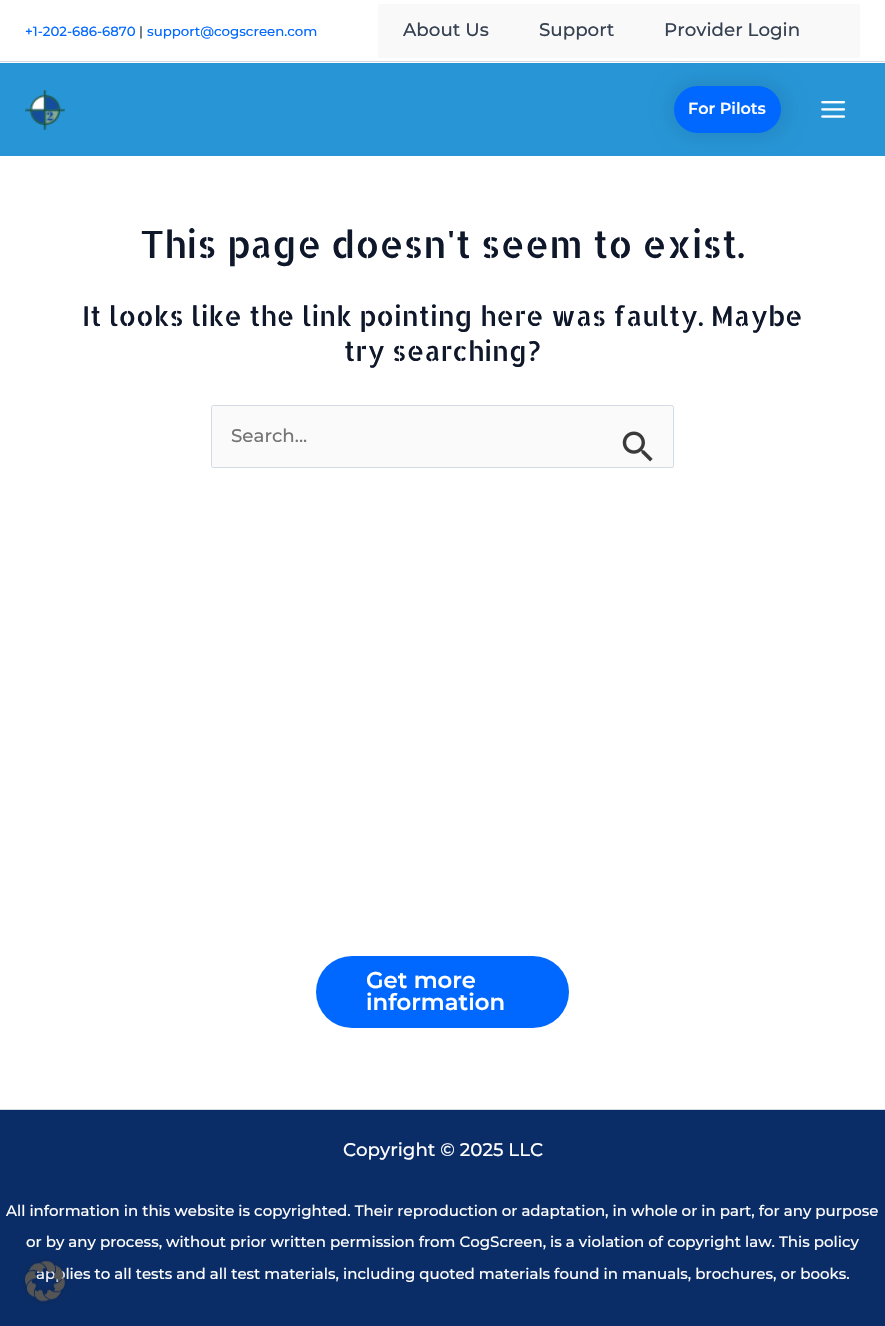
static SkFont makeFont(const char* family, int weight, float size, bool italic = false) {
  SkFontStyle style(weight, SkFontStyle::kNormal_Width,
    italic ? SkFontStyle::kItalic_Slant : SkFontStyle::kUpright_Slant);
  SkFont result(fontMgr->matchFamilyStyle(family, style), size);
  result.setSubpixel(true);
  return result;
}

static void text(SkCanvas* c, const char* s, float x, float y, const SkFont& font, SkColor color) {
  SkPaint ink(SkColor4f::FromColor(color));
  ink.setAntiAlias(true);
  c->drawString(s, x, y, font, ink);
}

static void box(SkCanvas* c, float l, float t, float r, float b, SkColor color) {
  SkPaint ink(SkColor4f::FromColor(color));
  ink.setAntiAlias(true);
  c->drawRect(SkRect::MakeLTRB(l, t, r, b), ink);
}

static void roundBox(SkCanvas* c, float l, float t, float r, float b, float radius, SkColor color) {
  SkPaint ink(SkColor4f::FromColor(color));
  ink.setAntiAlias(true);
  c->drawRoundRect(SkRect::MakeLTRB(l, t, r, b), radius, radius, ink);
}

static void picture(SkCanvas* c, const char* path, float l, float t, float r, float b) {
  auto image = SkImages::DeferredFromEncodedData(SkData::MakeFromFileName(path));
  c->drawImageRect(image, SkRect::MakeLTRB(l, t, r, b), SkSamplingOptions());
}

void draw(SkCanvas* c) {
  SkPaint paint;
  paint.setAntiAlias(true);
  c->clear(0xffffffff);
  box(c, 0, 61, 885, 62, 0xffd1dae5);
  SkFont face1 = makeFont("Montserrat", 500, 13.3f);
  text(c, "+1-202-686-6870", 25, 36, face1, 0xff0067ff);
  text(c, "|", 139, 36, face1, 0xff364151);
  text(c, "support@cogscreen.com", 147, 36, face1, 0xff0067ff);
  box(c, 378, 4, 860, 58, 0xfff9f9f9);
  SkFont face2 = makeFont("Montserrat", 500, 18.25f);
  text(c, "About Us", 403, 36, face2, 0xff364151);
  text(c, "Support", 539, 36, face2, 0xff364151);
  text(c, "Provider Login", 664, 36, face2, 0xff364151);
  box(c, 0, 63, 885, 156, 0xff2795d6);
  picture(c, "img_01.png", 25, 90, 65, 130);
  paint.setColor(0x1a000000);
  paint.setMaskFilter(SkMaskFilter::MakeBlur(kNormal_SkBlurStyle, 10));
  c->drawRoundRect(SkRect::MakeLTRB(671, 83, 786, 136), 26.5f, 26.5f, paint);
  paint.setMaskFilter(nullptr);
  roundBox(c, 674, 86, 781, 133, 23.5f, 0xff0067ff);
  SkFont face3 = makeFont("Montserrat", 600, 16);
  text(c, "For Pilots", 688, 114, face3, 0xffffffff);
  picture(c, "img_02.png", 821, 101, 846, 118);
  SkFont face4 = makeFont("Allerta Stencil", 400, 37.5f);
  text(c, "This page doesn't seem to exist.", 140, 258, face4, 0xff0f172a);
  SkFont face5 = makeFont("Allerta Stencil", 400, 27.35f);
  text(c, "It looks like the link pointing here was faulty. Maybe", 82, 326, face5, 0xff0f172a);
  text(c, "try searching?", 344, 361, face5, 0xff0f172a);
  paint.setColor(0xfffafafa);
  c->drawRoundRect(SkRect::MakeLTRB(211.5f, 405.5f, 673.5f, 467.5f), 2, 2, paint);
  paint.setStyle(SkPaint::kStroke_Style);
  paint.setStrokeWidth(1);
  paint.setColor(0xffd1dae5);
  c->drawRoundRect(SkRect::MakeLTRB(211.5f, 405.5f, 673.5f, 467.5f), 2, 2, paint);
  text(c, "Search...", 231, 442, face2, 0xff757575);
  picture(c, "img_03.png", 622, 431, 653, 462);
  roundBox(c, 316, 956, 569, 1028, 36, 0xff0067ff);
  SkFont face6 = makeFont("Montserrat", 600, 22.75f);
  text(c, "Get more", 366, 988, face6, 0xffffffff);
  text(c, "information", 366, 1010, face6, 0xffffffff);
  box(c, 0, 1110, 885, 1326, 0xff0b2d67);
  box(c, 0, 1109, 885, 1110, 0xffd1dae5);
  text(c, "Copyright © 2025 LLC", 343, 1156, face2, 0xffffffff);
  SkFont face7 = makeFont("Montserrat", 500, 15);
  text(c, "All information in this website is copyrighted. Their reproduction or adaptation, in whole or in part, for any purpose", 6, 1216, face7, 0xffffffff);
  text(c, "or by any process, without prior written permission from CogScreen, is a violation of copyright law. This policy", 26, 1247, face7, 0xffffffff);
  text(c, "applies to all tests and all test materials, including quoted materials found in manuals, brochures, or books.", 36, 1279, face7, 0xffffffff);
  picture(c, "img_04.png", 22, 1258, 68, 1304);
}
